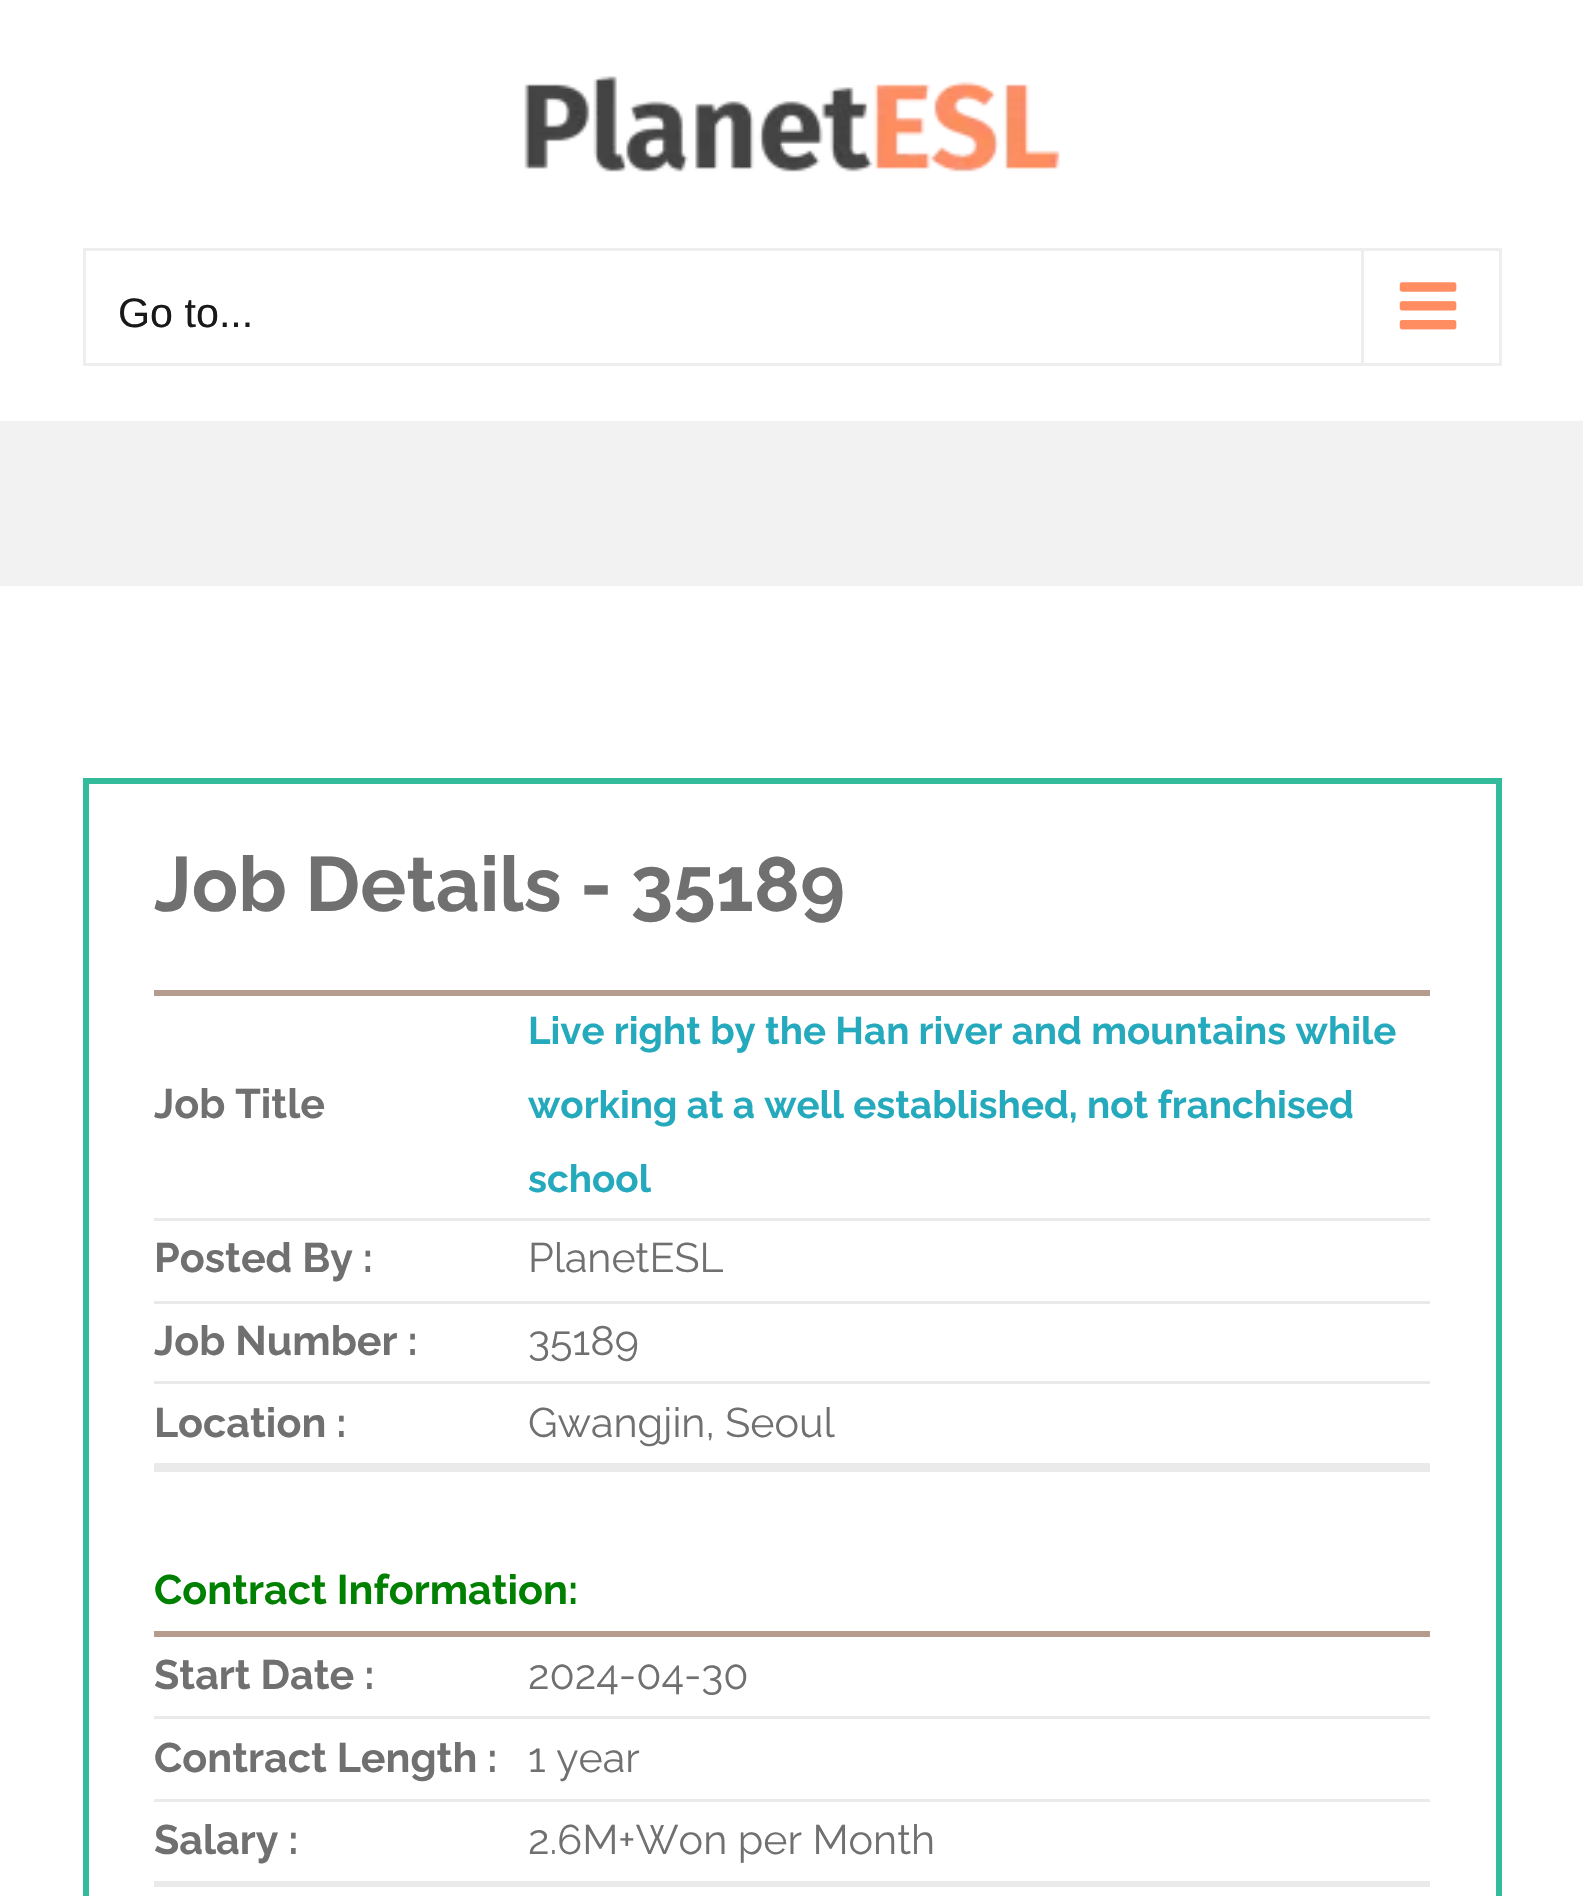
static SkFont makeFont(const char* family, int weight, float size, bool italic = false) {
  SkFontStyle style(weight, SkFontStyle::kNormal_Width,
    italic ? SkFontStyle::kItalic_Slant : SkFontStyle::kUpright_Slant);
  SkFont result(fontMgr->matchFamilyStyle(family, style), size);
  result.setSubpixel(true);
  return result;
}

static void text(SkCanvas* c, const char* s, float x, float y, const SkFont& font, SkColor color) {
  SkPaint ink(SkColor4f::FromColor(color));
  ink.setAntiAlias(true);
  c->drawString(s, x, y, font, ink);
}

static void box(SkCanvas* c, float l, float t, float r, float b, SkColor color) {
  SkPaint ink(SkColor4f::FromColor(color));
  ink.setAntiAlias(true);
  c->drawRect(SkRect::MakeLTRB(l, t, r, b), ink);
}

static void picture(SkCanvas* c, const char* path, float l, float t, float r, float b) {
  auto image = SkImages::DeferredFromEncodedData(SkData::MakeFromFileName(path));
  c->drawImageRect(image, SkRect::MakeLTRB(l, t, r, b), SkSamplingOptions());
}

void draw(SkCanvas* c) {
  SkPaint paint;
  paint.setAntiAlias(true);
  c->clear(0xffffffff);
  picture(c, "img_01.png", 524, 76, 1060, 172);
  paint.setStyle(SkPaint::kStroke_Style);
  paint.setStrokeWidth(3);
  paint.setColor(0xffeeeeee);
  c->drawRect(SkRect::MakeLTRB(84.5f, 249.5f, 1500.5f, 364.5f), paint);
  SkFont face1 = makeFont("Liberation Sans", 400, 41.25f);
  text(c, "Go to...", 118, 327, face1, 0xff191919);
  box(c, 1361, 250, 1364, 363, 0xffeeeeee);
  picture(c, "img_02.png", 1399, 282, 1457, 330);
  box(c, 0, 421, 1583, 586, 0xfff2f2f2);
  box(c, 83, 778, 1502, 784, 0xff33bb9b);
  box(c, 1496, 778, 1502, 1896, 0xff33bb9b);
  box(c, 83, 778, 89, 1896, 0xff33bb9b);
  SkFont face2 = makeFont("Raleway", 700, 76.75f);
  text(c, "Job Details - 35189", 154, 911, face2, 0xff707070);
  box(c, 154, 990, 1430, 996, 0xffb69b8f);
  SkFont face3 = makeFont("Raleway", 700, 41.25f);
  text(c, "Job Title", 154, 1118, face3, 0xff707070);
  SkFont face4 = makeFont("Raleway", 700, 38.5f);
  text(c, "Live right by the Han river and mountains while", 528, 1044, face4, 0xff25a9bd);
  text(c, "working at a well established, not franchised", 528, 1118, face4, 0xff25a9bd);
  text(c, "school", 528, 1192, face4, 0xff25a9bd);
  box(c, 154, 1218, 1430, 1221, 0xffeaeaea);
  text(c, "Posted By :", 154, 1272, face3, 0xff707070);
  SkFont face5 = makeFont("Raleway", 400, 41.25f);
  text(c, "PlanetESL", 528, 1272, face5, 0xff707070);
  box(c, 154, 1301, 1430, 1304, 0xffeaeaea);
  text(c, "Job Number :", 154, 1355, face3, 0xff707070);
  text(c, "35189", 528, 1355, face5, 0xff707070);
  box(c, 154, 1381, 1430, 1384, 0xffeaeaea);
  text(c, "Location :", 154, 1437, face3, 0xff707070);
  text(c, "Gwangjin, Seoul", 528, 1437, face5, 0xff707070);
  box(c, 154, 1463, 1430, 1472, 0xffeaeaea);
  text(c, "Contract Information:", 154, 1604, face3, 0xff008000);
  box(c, 154, 1631, 1430, 1637, 0xffb69b8f);
  text(c, "Start Date :", 154, 1689, face3, 0xff707070);
  text(c, "2024-04-30", 528, 1689, face5, 0xff707070);
  box(c, 154, 1716, 1430, 1719, 0xffeaeaea);
  text(c, "Contract Length :", 154, 1772, face3, 0xff707070);
  text(c, "1 year", 528, 1772, face5, 0xff707070);
  box(c, 154, 1799, 1430, 1802, 0xffeaeaea);
  text(c, "Salary :", 154, 1854, face3, 0xff707070);
  text(c, "2.6M+Won per Month", 528, 1854, face5, 0xff707070);
  box(c, 154, 1881, 1430, 1887, 0xffeaeaea);
}
